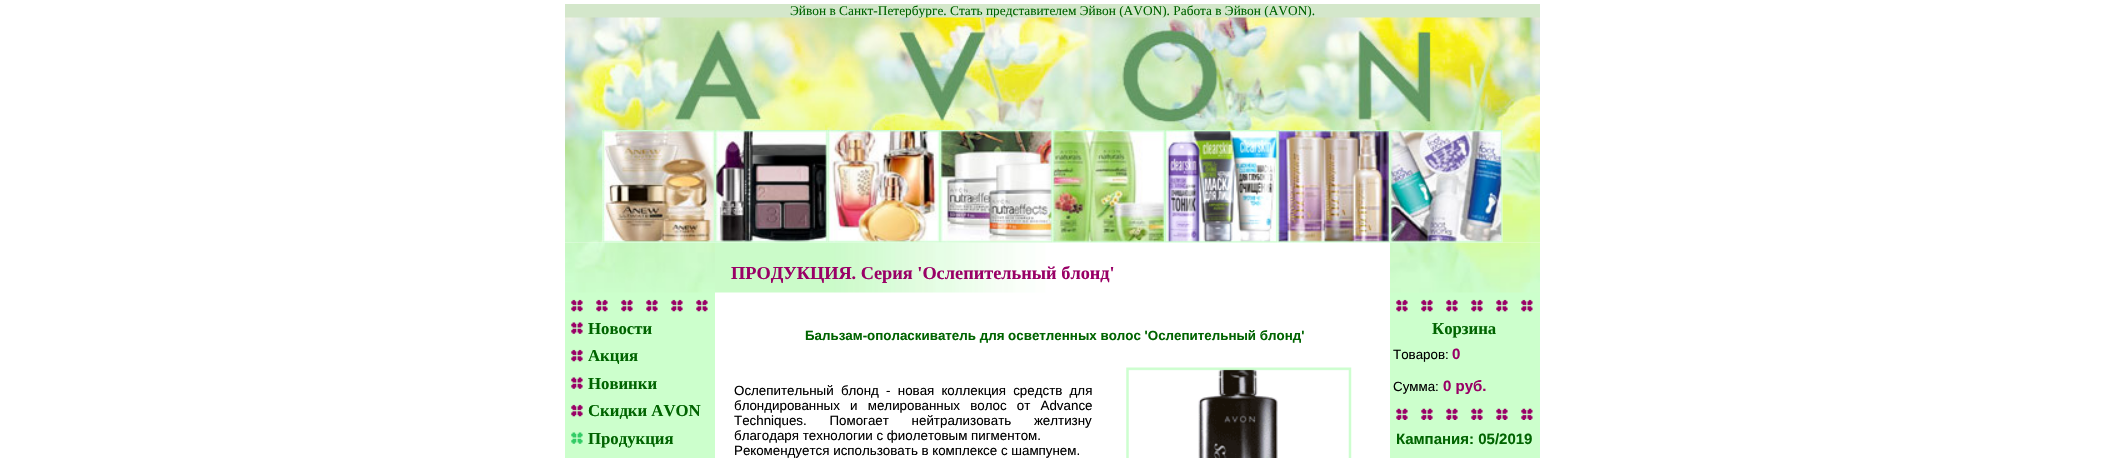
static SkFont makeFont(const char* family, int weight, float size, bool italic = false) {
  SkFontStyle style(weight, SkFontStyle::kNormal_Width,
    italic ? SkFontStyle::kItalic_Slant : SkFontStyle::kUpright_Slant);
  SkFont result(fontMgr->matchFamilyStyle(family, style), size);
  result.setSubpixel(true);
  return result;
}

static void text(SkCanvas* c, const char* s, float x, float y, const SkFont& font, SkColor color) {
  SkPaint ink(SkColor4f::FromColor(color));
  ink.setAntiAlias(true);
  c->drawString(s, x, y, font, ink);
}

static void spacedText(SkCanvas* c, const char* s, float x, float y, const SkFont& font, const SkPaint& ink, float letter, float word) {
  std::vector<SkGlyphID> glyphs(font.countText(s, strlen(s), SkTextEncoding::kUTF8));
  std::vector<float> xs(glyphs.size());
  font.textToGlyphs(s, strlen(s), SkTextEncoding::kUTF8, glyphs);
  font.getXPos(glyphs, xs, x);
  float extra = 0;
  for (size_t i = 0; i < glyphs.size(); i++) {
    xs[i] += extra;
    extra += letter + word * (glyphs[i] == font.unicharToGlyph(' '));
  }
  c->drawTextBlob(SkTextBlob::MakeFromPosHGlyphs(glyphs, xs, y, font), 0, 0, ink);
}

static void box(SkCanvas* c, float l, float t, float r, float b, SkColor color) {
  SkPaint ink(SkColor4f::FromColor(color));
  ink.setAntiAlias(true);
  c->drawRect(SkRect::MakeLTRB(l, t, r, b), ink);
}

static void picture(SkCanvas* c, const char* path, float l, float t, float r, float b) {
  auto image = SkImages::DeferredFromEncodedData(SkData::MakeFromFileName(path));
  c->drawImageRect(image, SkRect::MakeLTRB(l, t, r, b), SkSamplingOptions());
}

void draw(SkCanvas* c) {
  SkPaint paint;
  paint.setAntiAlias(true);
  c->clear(0xffffffff);
  box(c, 565, 4, 1540, 18, 0xffd4e7cb);
  SkFont face1 = makeFont("Liberation Serif", 400, 13.35f);
  text(c, "Эйвон в Санкт-Петербурге. Стать представителем Эйвон (AVON). Работа в Эйвон (AVON).", 790, 15, face1, 0xff006400);
  picture(c, "img_01.png", 565, 17, 1540, 130);
  box(c, 565, 292, 715, 458, 0xffccffcc);
  picture(c, "img_13.png", 565, 242, 715, 293);
  picture(c, "img_02.png", 565, 130, 603, 243);
  picture(c, "img_03.png", 602, 130, 715, 243);
  picture(c, "img_12.png", 715, 242, 1390, 293);
  picture(c, "img_04.png", 715, 130, 828, 243);
  picture(c, "img_05.png", 827, 130, 940, 243);
  picture(c, "img_06.png", 940, 130, 1053, 243);
  picture(c, "img_07.png", 1052, 130, 1165, 243);
  picture(c, "img_08.png", 1165, 130, 1278, 243);
  picture(c, "img_09.png", 1277, 130, 1390, 243);
  box(c, 1390, 292, 1540, 458, 0xffccffcc);
  picture(c, "img_18.png", 1390, 242, 1540, 293);
  picture(c, "img_10.png", 1390, 130, 1503, 243);
  picture(c, "img_11.png", 1502, 130, 1540, 243);
  SkFont face2 = makeFont("Liberation Serif", 700, 18.3f);
  text(c, "ПРОДУКЦИЯ. Серия 'Ослепительный блонд'", 731, 279, face2, 0xff990066);
  picture(c, "img_14.png", 571, 299, 708, 312);
  picture(c, "img_15.png", 571, 322, 583, 334);
  SkFont face3 = makeFont("Liberation Serif", 700, 16.75f);
  text(c, "Новости", 588, 334, face3, 0xff006400);
  picture(c, "img_16.png", 571, 349, 583, 362);
  text(c, "Акция", 588, 361, face3, 0xff006400);
  picture(c, "img_15.png", 571, 377, 583, 389);
  text(c, "Новинки", 588, 389, face3, 0xff006400);
  picture(c, "img_16.png", 571, 404, 583, 417);
  text(c, "Скидки AVON", 588, 416, face3, 0xff006400);
  picture(c, "img_17.png", 571, 432, 583, 444);
  text(c, "Продукция", 588, 444, face3, 0xff006400);
  picture(c, "img_19.png", 1396, 299, 1533, 312);
  text(c, "Корзина", 1432, 334, face3, 0xff006400);
  SkFont face4 = makeFont("Liberation Sans", 400, 13.35f);
  text(c, "Товаров:", 1393, 359, face4, 0xff000000);
  SkFont face5 = makeFont("Liberation Sans", 700, 15);
  text(c, "0", 1452, 359, face5, 0xff990066);
  text(c, "Сумма:", 1393, 391, face4, 0xff000000);
  text(c, "0 руб.", 1443, 391, face5, 0xff990066);
  picture(c, "img_20.png", 1396, 408, 1533, 420);
  text(c, "Кампания: 05/2019", 1396, 444, face5, 0xff006400);
  SkFont face6 = makeFont("Liberation Sans", 700, 13.35f);
  text(c, "Бальзам-ополаскиватель для осветленных волос 'Ослепительный блонд'", 805, 340, face6, 0xff006400);
  paint.setColor(0xff000000);
  spacedText(c, "Ослепительный блонд - новая коллекция средств для", 734, 395, face4, paint, 0, 3.5f);
  spacedText(c, "блондированных и мелированных волос от Advance", 734, 410, face4, paint, 0, 6.5f);
  spacedText(c, "Techniques. Помогает нейтрализовать желтизну", 734, 425, face4, paint, 0, 19);
  text(c, "благодаря технологии с фиолетовым пигментом.", 734, 440, face4, 0xff000000);
  text(c, "Рекомендуется использовать в комплексе с шампунем.", 734, 455, face4, 0xff000000);
  picture(c, "img_21.png", 1126, 367, 1352, 458);
}
